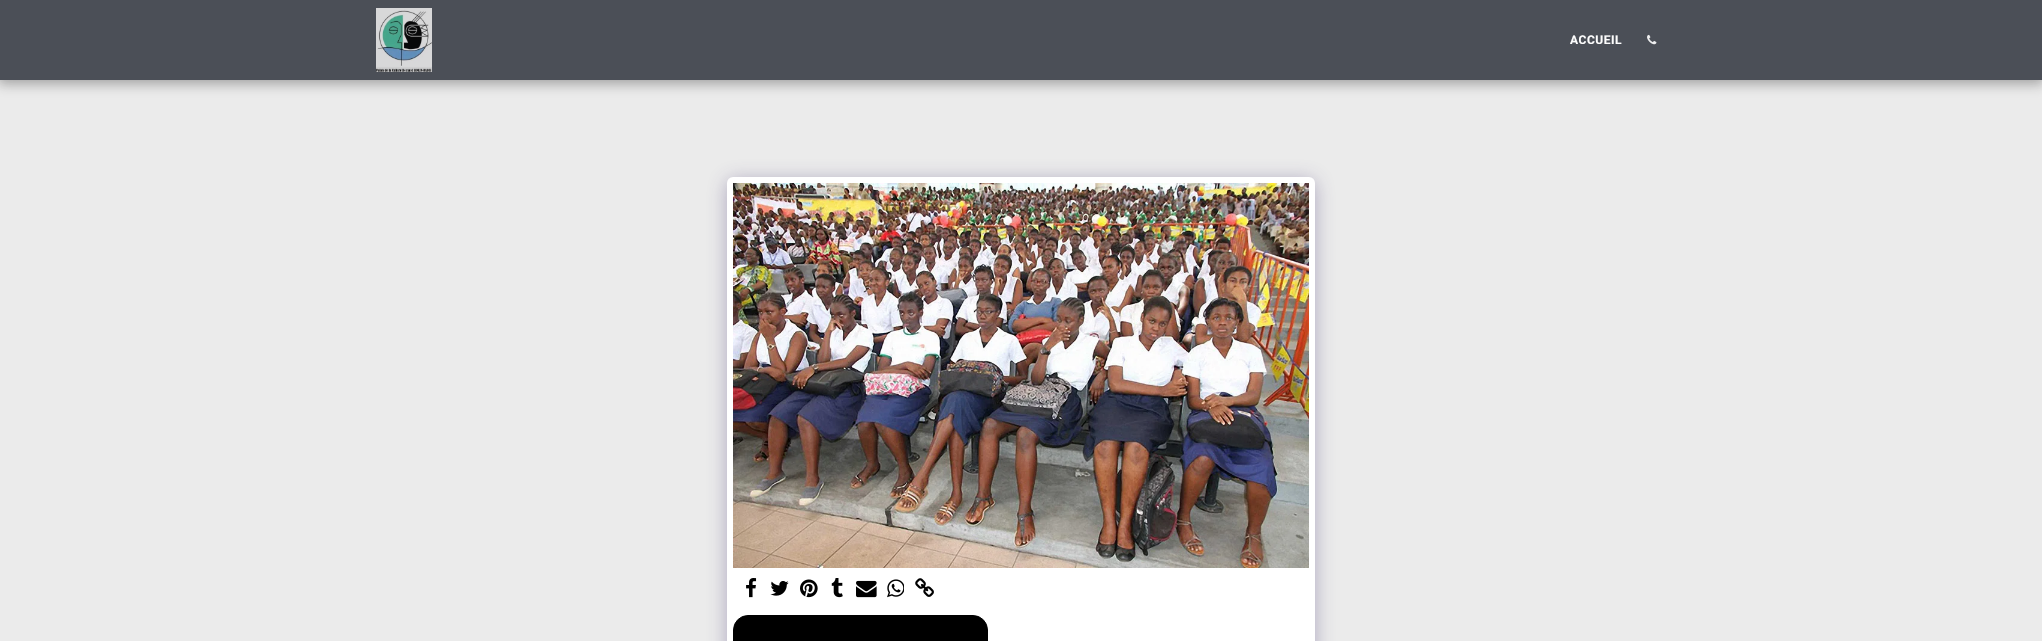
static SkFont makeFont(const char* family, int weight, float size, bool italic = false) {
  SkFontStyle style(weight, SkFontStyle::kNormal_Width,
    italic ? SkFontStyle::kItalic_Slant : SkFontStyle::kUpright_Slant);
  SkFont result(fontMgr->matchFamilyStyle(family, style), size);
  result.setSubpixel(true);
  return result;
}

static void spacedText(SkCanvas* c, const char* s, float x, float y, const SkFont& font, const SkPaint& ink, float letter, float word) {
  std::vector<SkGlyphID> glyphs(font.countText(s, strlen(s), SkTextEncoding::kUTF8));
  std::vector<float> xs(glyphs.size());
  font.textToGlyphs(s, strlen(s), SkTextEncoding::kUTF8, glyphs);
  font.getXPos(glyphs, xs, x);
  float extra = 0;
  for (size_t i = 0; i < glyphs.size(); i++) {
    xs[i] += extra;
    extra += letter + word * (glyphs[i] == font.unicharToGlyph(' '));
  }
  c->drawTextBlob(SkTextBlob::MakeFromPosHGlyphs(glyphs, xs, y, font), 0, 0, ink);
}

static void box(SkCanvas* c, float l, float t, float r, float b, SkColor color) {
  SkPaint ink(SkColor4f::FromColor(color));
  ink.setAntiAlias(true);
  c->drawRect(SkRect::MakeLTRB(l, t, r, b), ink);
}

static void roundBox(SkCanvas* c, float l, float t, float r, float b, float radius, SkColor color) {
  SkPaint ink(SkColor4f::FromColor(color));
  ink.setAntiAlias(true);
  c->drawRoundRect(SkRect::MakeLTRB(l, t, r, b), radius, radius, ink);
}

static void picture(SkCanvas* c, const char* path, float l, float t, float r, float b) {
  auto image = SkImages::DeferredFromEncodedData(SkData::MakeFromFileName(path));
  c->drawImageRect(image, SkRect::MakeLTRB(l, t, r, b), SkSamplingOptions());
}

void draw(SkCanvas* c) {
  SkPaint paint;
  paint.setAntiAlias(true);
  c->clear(0xffebebeb);
  paint.setColor(0x59181818);
  paint.setMaskFilter(SkMaskFilter::MakeBlur(kNormal_SkBlurStyle, 6));
  c->drawRect(SkRect::MakeLTRB(-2, 0, 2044, 84), paint);
  paint.setMaskFilter(nullptr);
  box(c, 0, 0, 2042, 80, 0xff4b4f57);
  picture(c, "img_01.png", 376, 8, 432, 72);
  SkFont face1 = makeFont("Roboto", 700, 12);
  paint.setColor(0xfffdfdfd);
  spacedText(c, "ACCUEIL", 1570, 44, face1, paint, 0.5f, 0);
  picture(c, "img_02.png", 1647, 34, 1657, 45);
  paint.setColor(0x664d3f7a);
  paint.setMaskFilter(SkMaskFilter::MakeBlur(kNormal_SkBlurStyle, 10));
  c->drawRoundRect(SkRect::MakeLTRB(727, 180, 1315, 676), 6, 6, paint);
  paint.setMaskFilter(nullptr);
  roundBox(c, 727, 177, 1315, 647, 6, 0xffffffff);
  picture(c, "img_03.png", 733, 183, 1309, 568);
  picture(c, "img_04.png", 746, 578, 757, 598);
  picture(c, "img_05.png", 770, 581, 789, 596);
  picture(c, "img_06.png", 800, 579, 818, 598);
  picture(c, "img_07.png", 831, 578, 843, 598);
  picture(c, "img_08.png", 856, 580, 877, 598);
  picture(c, "img_09.png", 887, 579, 904, 598);
  picture(c, "img_10.png", 915, 578, 934, 597);
  paint.setColor(0xff000000);
  c->drawRoundRect(SkRect::MakeLTRB(733.5f, 615.5f, 987.5f, 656.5f), 14.5f, 14.5f, paint);
  paint.setStyle(SkPaint::kStroke_Style);
  paint.setStrokeWidth(1);
  c->drawRoundRect(SkRect::MakeLTRB(733.5f, 615.5f, 987.5f, 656.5f), 14.5f, 14.5f, paint);
}
